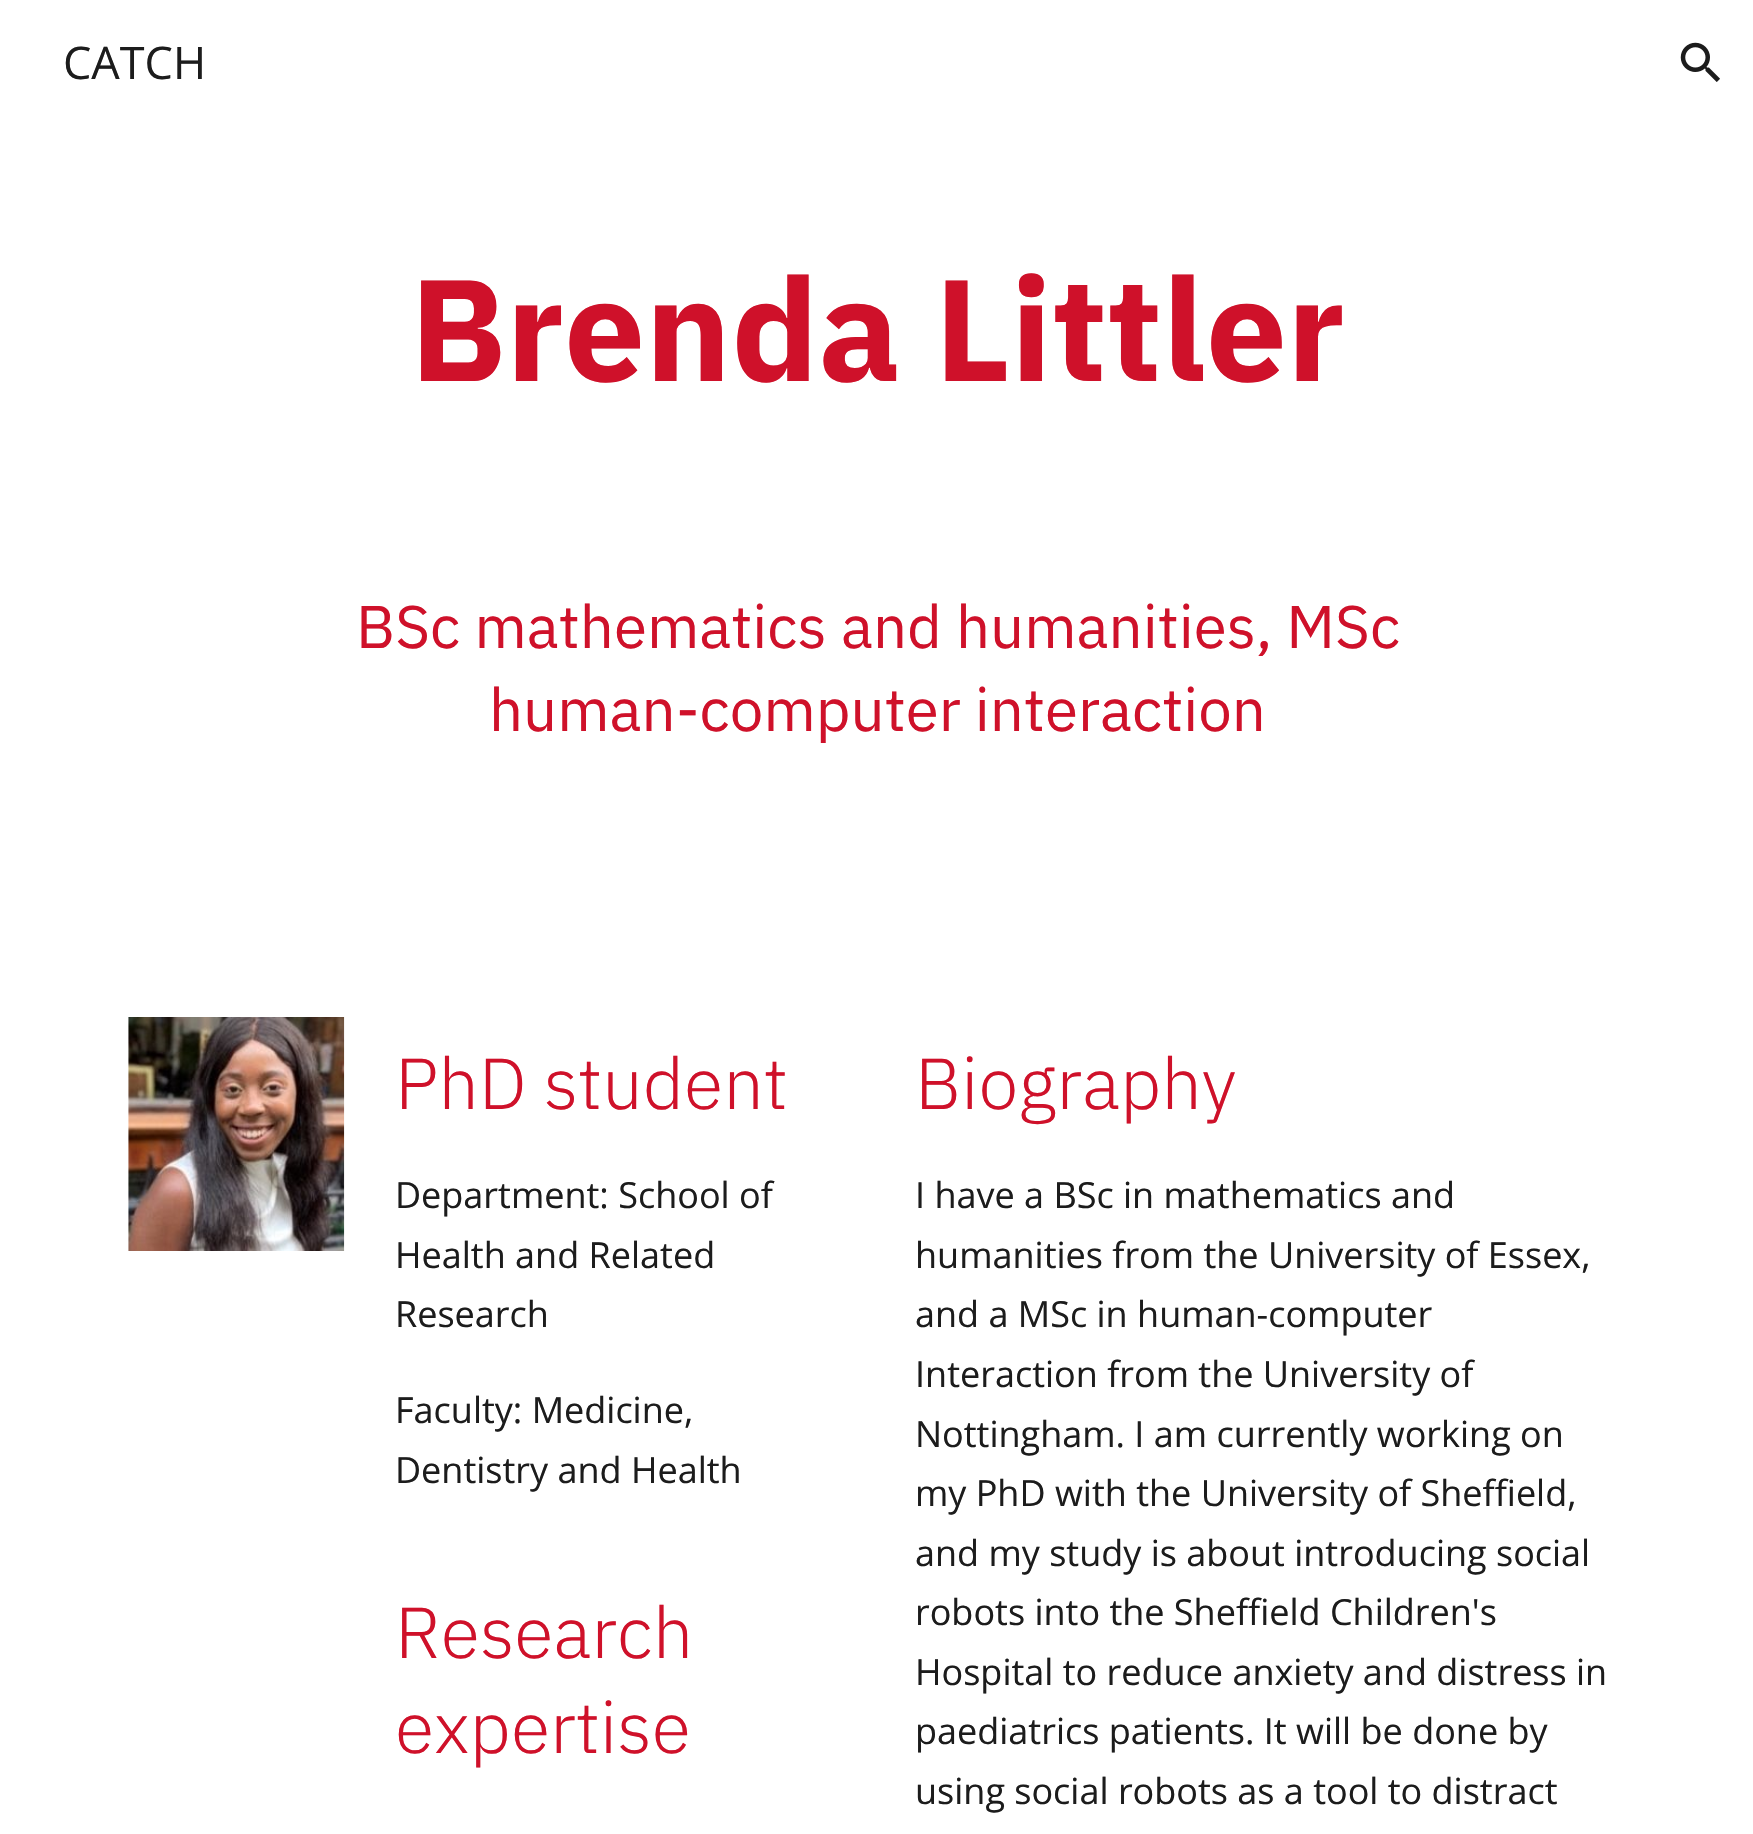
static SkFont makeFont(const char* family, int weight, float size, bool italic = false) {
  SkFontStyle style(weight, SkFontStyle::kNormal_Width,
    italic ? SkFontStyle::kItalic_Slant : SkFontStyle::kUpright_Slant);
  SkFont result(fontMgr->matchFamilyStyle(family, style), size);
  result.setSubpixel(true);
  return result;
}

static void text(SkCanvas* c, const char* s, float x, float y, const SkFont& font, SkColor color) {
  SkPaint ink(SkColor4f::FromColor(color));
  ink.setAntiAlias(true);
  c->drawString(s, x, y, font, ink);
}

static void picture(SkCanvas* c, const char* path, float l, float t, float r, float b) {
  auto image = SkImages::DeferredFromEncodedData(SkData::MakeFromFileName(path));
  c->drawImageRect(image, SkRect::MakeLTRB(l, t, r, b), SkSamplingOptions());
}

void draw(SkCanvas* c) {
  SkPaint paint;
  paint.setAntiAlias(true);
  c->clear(0xffffffff);
  SkFont face1 = makeFont("Open Sans", 400, 45);
  text(c, "CATCH", 63, 79, face1, 0xff1c1c1c);
  picture(c, "img_01.png", 1680, 42, 1720, 82);
  SkFont face2 = makeFont("IBM Plex Sans", 700, 144);
  text(c, "Brenda Littler", 410, 381, face2, 0xffcf112a);
  SkFont face3 = makeFont("IBM Plex Sans", 400, 60);
  text(c, "BSc mathematics and humanities, MSc", 356, 648, face3, 0xffcf112a);
  text(c, "human-computer interaction", 489, 731, face3, 0xffcf112a);
  picture(c, "img_02.png", 128, 1017, 345, 1251);
  SkFont face4 = makeFont("IBM Plex Sans", 300, 72);
  text(c, "PhD student", 395, 1109, face4, 0xffcf112a);
  SkFont face5 = makeFont("Open Sans", 400, 36);
  text(c, "Department: School of", 395, 1208, face5, 0xff1c1c1c);
  text(c, "Health and Related", 395, 1268, face5, 0xff1c1c1c);
  text(c, "Research", 395, 1327, face5, 0xff1c1c1c);
  text(c, "Faculty: Medicine,", 395, 1423, face5, 0xff1c1c1c);
  text(c, "Dentistry and Health", 395, 1483, face5, 0xff1c1c1c);
  text(c, "Research", 395, 1658, face4, 0xffcf112a);
  text(c, "expertise", 395, 1753, face4, 0xffcf112a);
  text(c, "Biography", 915, 1109, face4, 0xffcf112a);
  text(c, "I have a BSc in mathematics and", 915, 1208, face5, 0xff1c1c1c);
  text(c, "humanities from the University of Essex,", 915, 1268, face5, 0xff1c1c1c);
  text(c, "and a MSc in human-computer", 915, 1327, face5, 0xff1c1c1c);
  text(c, "Interaction from the University of", 915, 1387, face5, 0xff1c1c1c);
  text(c, "Nottingham. I am currently working on", 915, 1447, face5, 0xff1c1c1c);
  text(c, "my PhD with the University of Sheffield,", 915, 1506, face5, 0xff1c1c1c);
  text(c, "and my study is about introducing social", 915, 1566, face5, 0xff1c1c1c);
  text(c, "robots into the Sheffield Children's", 915, 1625, face5, 0xff1c1c1c);
  text(c, "Hospital to reduce anxiety and distress in", 915, 1685, face5, 0xff1c1c1c);
  text(c, "paediatrics patients. It will be done by", 915, 1744, face5, 0xff1c1c1c);
  text(c, "using social robots as a tool to distract", 915, 1804, face5, 0xff1c1c1c);
}
